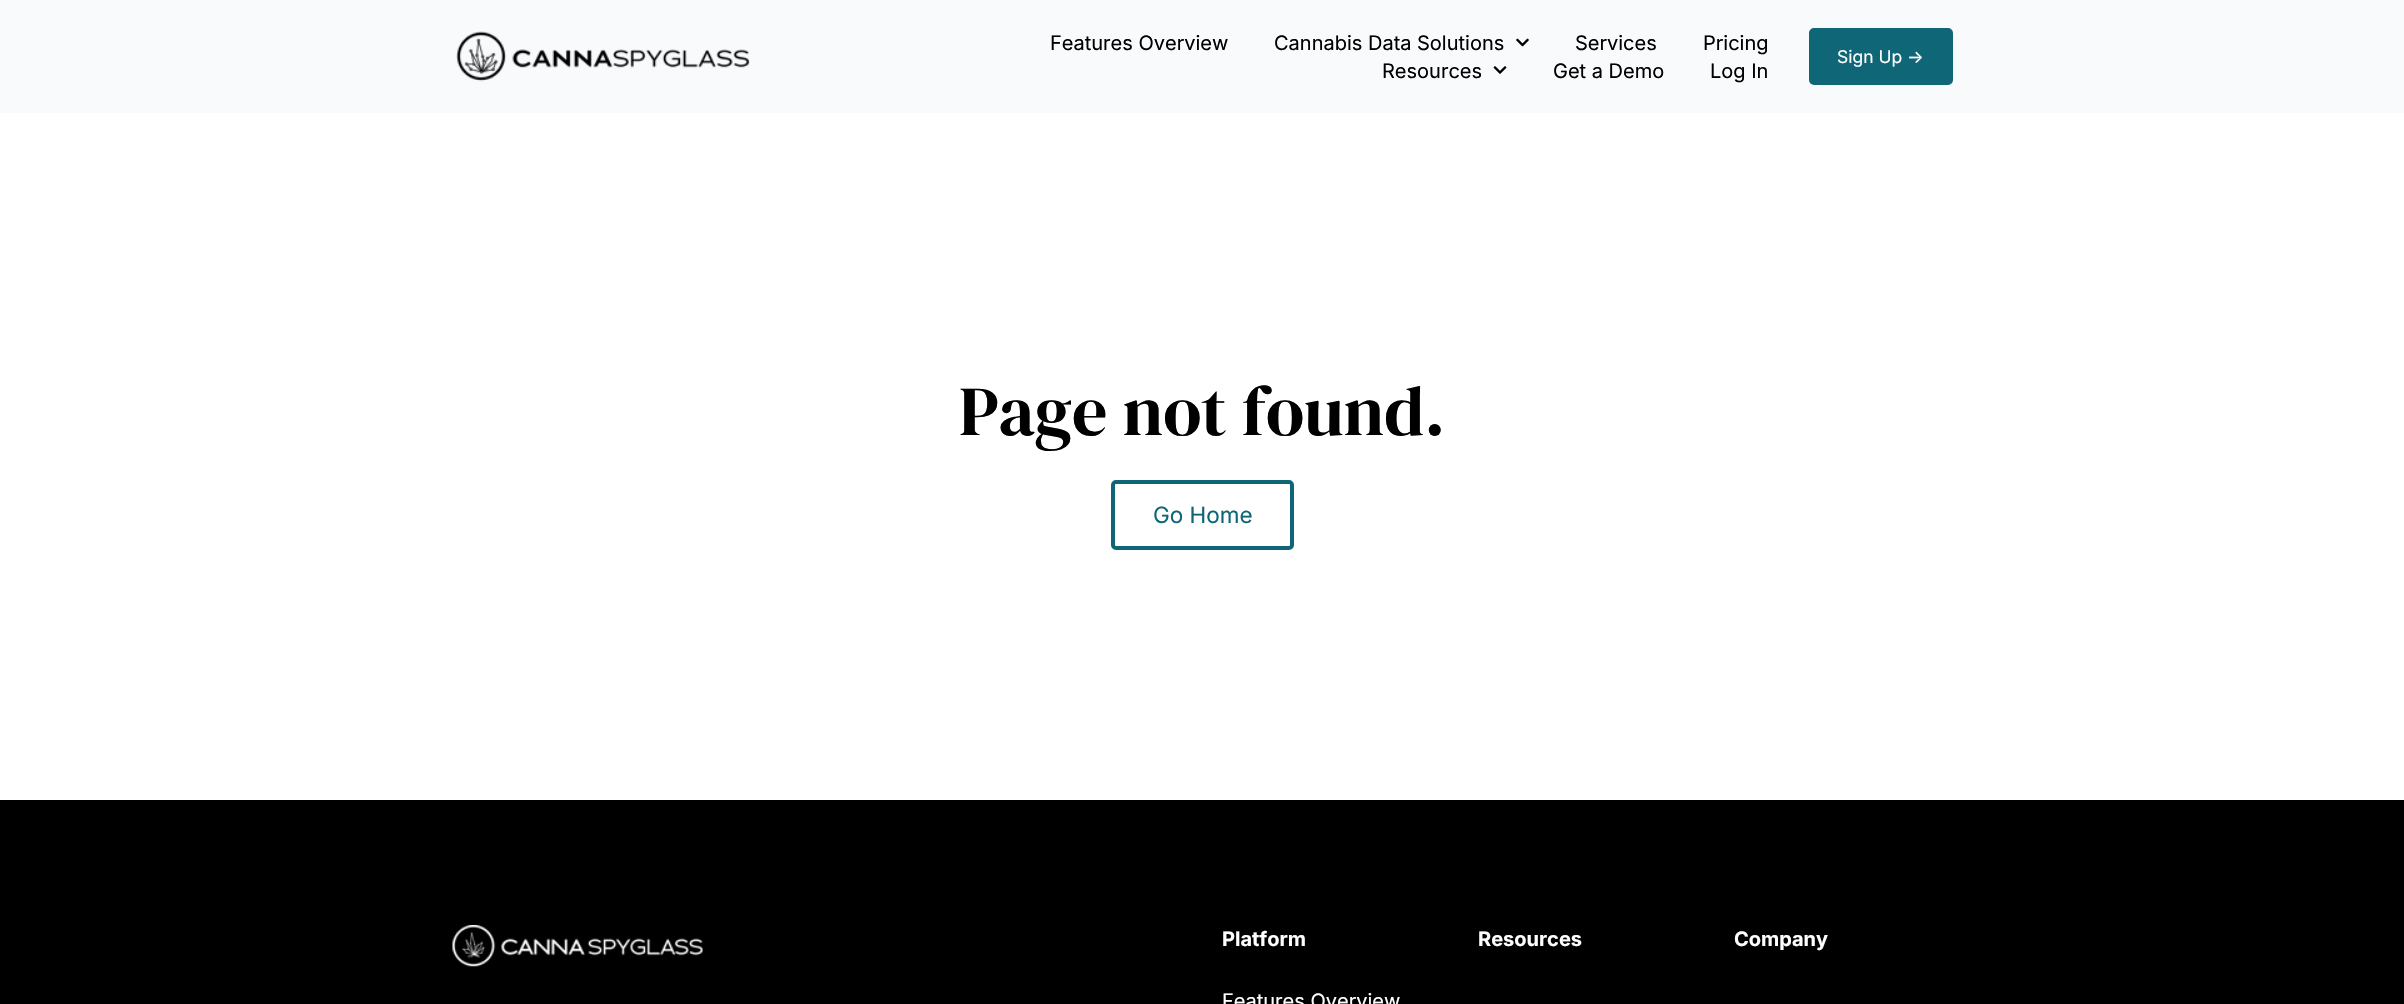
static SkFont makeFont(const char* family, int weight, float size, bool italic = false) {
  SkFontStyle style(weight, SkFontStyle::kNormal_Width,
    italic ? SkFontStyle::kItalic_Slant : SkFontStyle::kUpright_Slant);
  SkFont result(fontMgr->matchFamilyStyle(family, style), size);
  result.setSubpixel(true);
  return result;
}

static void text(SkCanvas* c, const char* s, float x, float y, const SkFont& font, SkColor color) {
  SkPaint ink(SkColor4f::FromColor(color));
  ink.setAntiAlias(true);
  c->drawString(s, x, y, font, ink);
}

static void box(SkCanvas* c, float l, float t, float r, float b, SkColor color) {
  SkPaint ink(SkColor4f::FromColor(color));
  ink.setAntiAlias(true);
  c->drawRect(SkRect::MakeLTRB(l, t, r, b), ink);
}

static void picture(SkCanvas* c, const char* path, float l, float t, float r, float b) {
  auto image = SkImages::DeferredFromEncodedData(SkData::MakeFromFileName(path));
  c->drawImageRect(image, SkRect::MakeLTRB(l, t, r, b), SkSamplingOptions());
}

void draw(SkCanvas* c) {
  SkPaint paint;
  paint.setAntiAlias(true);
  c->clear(0xffffffff);
  box(c, 0, 0, 2404, 113, 0xfff8fafc);
  picture(c, "img_01.png", 456, 31, 750, 82);
  SkFont face1 = makeFont("Inter", 400, 20);
  text(c, "Features Overview", 1050, 50, face1, 0xff000000);
  text(c, "Cannabis Data Solutions", 1274, 50, face1, 0xff000000);
  picture(c, "img_02.png", 1516, 38, 1529, 47);
  text(c, "Services", 1575, 50, face1, 0xff000000);
  text(c, "Pricing", 1703, 50, face1, 0xff000000);
  text(c, "Resources", 1382, 78, face1, 0xff000000);
  picture(c, "img_03.png", 1493, 66, 1507, 74);
  text(c, "Get a Demo", 1553, 78, face1, 0xff000000);
  text(c, "Log In", 1710, 78, face1, 0xff000000);
  paint.setColor(0xff0f6676);
  c->drawRoundRect(SkRect::MakeLTRB(1811, 30, 1951, 83), 3, 3, paint);
  paint.setStyle(SkPaint::kStroke_Style);
  paint.setStrokeWidth(4);
  c->drawRoundRect(SkRect::MakeLTRB(1811, 30, 1951, 83), 3, 3, paint);
  SkFont face2 = makeFont("Inter", 400, 17.5f);
  text(c, "Sign Up →", 1837, 63, face2, 0xffffffff);
  SkFont face3 = makeFont("DM Serif Display", 400, 70);
  text(c, "Page not found.", 959, 435, face3, 0xff000000);
  c->drawRoundRect(SkRect::MakeLTRB(1113, 482, 1292, 548), 3, 3, paint);
  SkFont face4 = makeFont("Inter", 400, 22.5f);
  text(c, "Go Home", 1153, 523, face4, 0xff0f6676);
  box(c, 0, 800, 2404, 1004, 0xff000000);
  picture(c, "img_04.png", 452, 925, 703, 967);
  SkFont face5 = makeFont("Inter", 700, 20);
  text(c, "Platform", 1222, 946, face5, 0xffffffff);
  text(c, "Features Overview", 1222, 1008, face1, 0xffffffff);
  text(c, "Resources", 1478, 946, face5, 0xffffffff);
  text(c, "Company", 1734, 946, face5, 0xffffffff);
}
